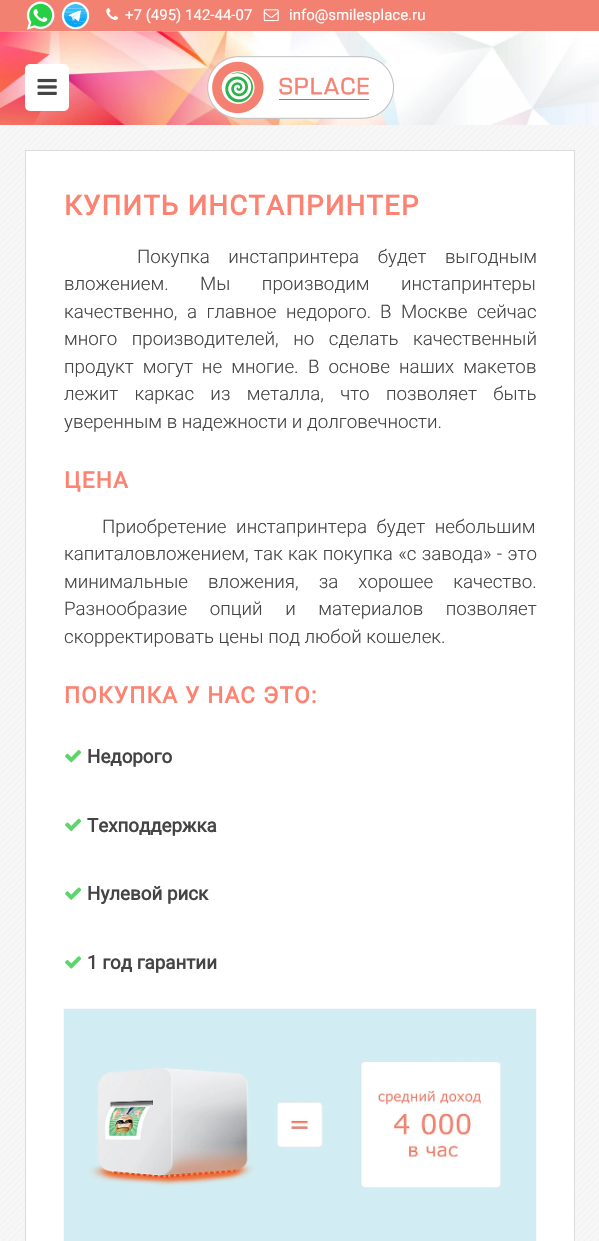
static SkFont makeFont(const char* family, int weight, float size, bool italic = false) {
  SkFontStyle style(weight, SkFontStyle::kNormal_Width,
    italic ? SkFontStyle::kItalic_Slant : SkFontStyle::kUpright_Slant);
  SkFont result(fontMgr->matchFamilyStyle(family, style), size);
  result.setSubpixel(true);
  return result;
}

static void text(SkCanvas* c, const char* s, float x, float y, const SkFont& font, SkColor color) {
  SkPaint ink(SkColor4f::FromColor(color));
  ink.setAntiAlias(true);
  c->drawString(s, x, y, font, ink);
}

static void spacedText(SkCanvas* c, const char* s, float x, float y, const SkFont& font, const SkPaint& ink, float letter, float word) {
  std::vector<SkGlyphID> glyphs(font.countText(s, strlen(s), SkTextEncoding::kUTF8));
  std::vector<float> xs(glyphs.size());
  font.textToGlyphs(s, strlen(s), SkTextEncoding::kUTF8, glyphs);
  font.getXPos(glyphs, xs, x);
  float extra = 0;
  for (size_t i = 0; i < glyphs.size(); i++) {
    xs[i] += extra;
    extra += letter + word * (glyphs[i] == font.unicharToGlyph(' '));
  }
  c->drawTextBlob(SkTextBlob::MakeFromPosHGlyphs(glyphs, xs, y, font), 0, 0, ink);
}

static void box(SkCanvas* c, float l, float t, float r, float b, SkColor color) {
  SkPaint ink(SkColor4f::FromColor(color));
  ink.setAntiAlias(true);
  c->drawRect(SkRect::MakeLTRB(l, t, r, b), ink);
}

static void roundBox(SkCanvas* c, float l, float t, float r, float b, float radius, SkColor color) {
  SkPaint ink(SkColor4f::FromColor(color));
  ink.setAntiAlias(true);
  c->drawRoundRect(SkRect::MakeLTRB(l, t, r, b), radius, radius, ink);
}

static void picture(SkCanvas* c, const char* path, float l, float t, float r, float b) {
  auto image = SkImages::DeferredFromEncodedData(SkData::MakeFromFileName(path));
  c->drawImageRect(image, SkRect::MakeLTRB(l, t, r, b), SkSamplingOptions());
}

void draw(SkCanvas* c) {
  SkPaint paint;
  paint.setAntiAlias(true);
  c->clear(0xfff7f7f7);
  picture(c, "img_01.png", 0, 31, 599, 1241);
  box(c, 0, 0, 599, 31, 0xfff38171);
  picture(c, "img_02.png", 26, 1, 55, 30);
  picture(c, "img_03.png", 61, 1, 90, 30);
  picture(c, "img_04.png", 106, 8, 118, 20);
  SkFont face1 = makeFont("Roboto", 400, 15);
  text(c, "+7 (495) 142-44-07", 125, 20, face1, 0xffffffff);
  picture(c, "img_05.png", 263, 9, 279, 22);
  text(c, "info@smilesplace.ru", 289, 20, face1, 0xffffffff);
  picture(c, "img_06.png", 0, 31, 599, 125);
  roundBox(c, 25, 64, 69, 111, 5, 0xffffffff);
  picture(c, "img_07.png", 37, 78, 57, 95);
  picture(c, "img_08.png", 207, 56, 394, 119);
  paint.setColor(0xffffffff);
  c->drawRect(SkRect::MakeLTRB(25.5f, 150.5f, 574.5f, 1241.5f), paint);
  paint.setStyle(SkPaint::kStroke_Style);
  paint.setStrokeWidth(1);
  paint.setColor(0xffdcdcdc);
  c->drawRect(SkRect::MakeLTRB(25.5f, 150.5f, 574.5f, 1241.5f), paint);
  SkFont face2 = makeFont("Roboto", 700, 27.5f);
  paint.setStyle(SkPaint::kFill_Style);
  paint.setColor(0xfffc8271);
  spacedText(c, "КУПИТЬ ИНСТАПРИНТЕР", 64, 215, face2, paint, 1.25f, 0);
  SkFont face3 = makeFont("Roboto", 300, 18.75f);
  paint.setColor(0xff444444);
  spacedText(c, "Покупка инстапринтера будет выгодным", 137, 263, face3, paint, 0, 14);
  text(c, "вложением.", 64, 290, face3, 0xff444444);
  spacedText(c, "Мы производим инстапринтеры", 200, 290, face3, paint, 0, 27);
  spacedText(c, "качественно, а главное недорого.", 64, 318, face3, paint, 0, 5);
  spacedText(c, "В Москве сейчас", 380, 318, face3, paint, 0, 5);
  spacedText(c, "много производителей, но сделать качественный", 64, 345, face3, paint, 0, 10);
  spacedText(c, "продукт могут не многие.", 64, 373, face3, paint, 0, 4.5f);
  spacedText(c, "В основе наших макетов", 308, 373, face3, paint, 0, 4.5f);
  spacedText(c, "лежит каркас из металла, что позволяет быть", 64, 400, face3, paint, 0, 11.75f);
  text(c, "уверенным в надежности и долговечности.", 64, 428, face3, 0xff444444);
  SkFont face4 = makeFont("Roboto", 700, 22.5f);
  paint.setColor(0xfffc8271);
  spacedText(c, "ЦЕНА", 64, 488, face4, paint, 1.25f, 0);
  paint.setColor(0xff444444);
  spacedText(c, "Приобретение инстапринтера будет небольшим", 102, 533, face3, paint, 0, 5);
  spacedText(c, "капиталовложением, так как покупка «с завода» - это", 64, 560, face3, paint, 0, 0.75f);
  spacedText(c, "минимальные вложения, за хорошее качество.", 64, 588, face3, paint, 0, 15.5f);
  spacedText(c, "Разнообразие опций и материалов позволяет", 64, 615, face3, paint, 0, 18);
  text(c, "скорректировать цены под любой кошелек.", 64, 643, face3, 0xff444444);
  paint.setColor(0xfffc8271);
  spacedText(c, "ПОКУПКА У НАС ЭТО:", 64, 703, face4, paint, 1.25f, 0);
  picture(c, "img_09.png", 65, 749, 82, 763);
  SkFont face5 = makeFont("Roboto", 700, 18.75f);
  text(c, "Недорого", 87, 763, face5, 0xff444444);
  picture(c, "img_10.png", 65, 818, 82, 832);
  text(c, "Техподдержка", 87, 832, face5, 0xff444444);
  picture(c, "img_11.png", 65, 887, 82, 900);
  text(c, "Нулевой риск", 87, 900, face5, 0xff444444);
  picture(c, "img_12.png", 65, 956, 82, 969);
  text(c, "1 год гарантии", 87, 969, face5, 0xff444444);
  picture(c, "img_13.png", 63, 1008, 537, 1241);
}
